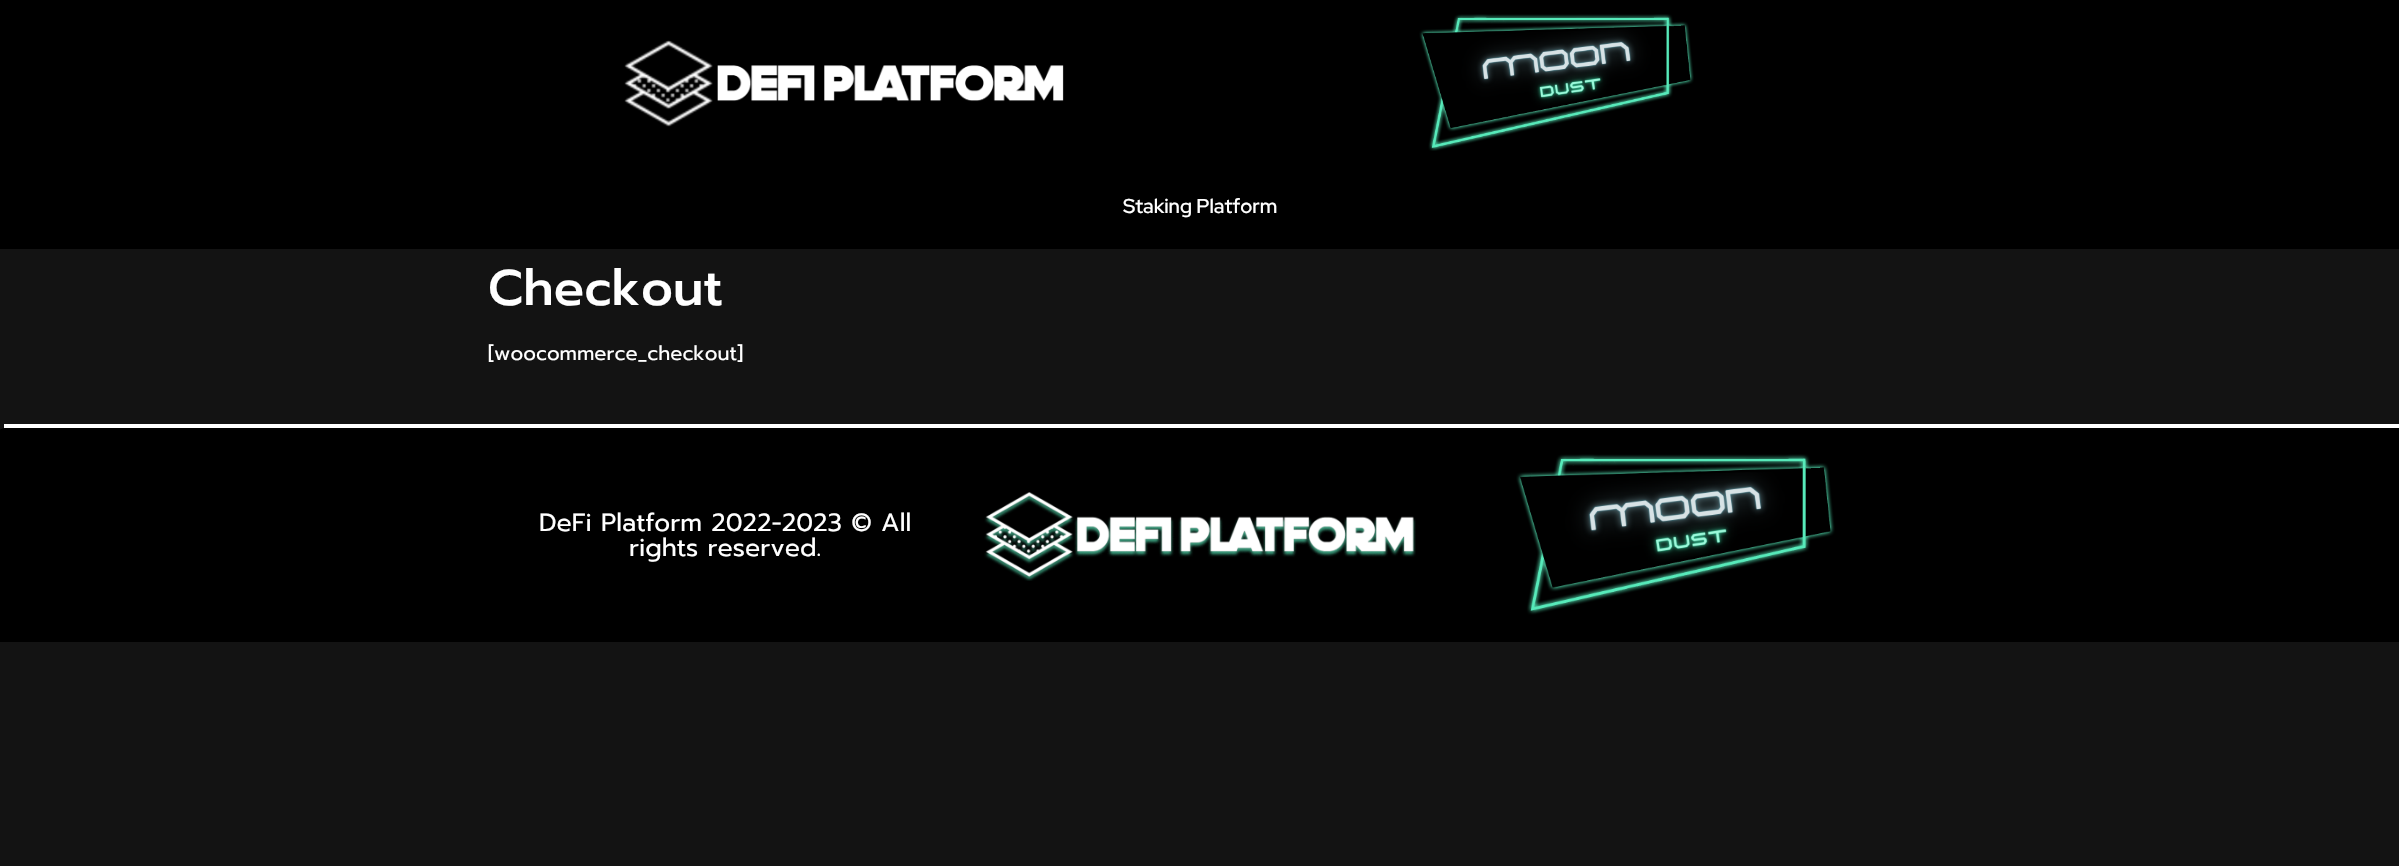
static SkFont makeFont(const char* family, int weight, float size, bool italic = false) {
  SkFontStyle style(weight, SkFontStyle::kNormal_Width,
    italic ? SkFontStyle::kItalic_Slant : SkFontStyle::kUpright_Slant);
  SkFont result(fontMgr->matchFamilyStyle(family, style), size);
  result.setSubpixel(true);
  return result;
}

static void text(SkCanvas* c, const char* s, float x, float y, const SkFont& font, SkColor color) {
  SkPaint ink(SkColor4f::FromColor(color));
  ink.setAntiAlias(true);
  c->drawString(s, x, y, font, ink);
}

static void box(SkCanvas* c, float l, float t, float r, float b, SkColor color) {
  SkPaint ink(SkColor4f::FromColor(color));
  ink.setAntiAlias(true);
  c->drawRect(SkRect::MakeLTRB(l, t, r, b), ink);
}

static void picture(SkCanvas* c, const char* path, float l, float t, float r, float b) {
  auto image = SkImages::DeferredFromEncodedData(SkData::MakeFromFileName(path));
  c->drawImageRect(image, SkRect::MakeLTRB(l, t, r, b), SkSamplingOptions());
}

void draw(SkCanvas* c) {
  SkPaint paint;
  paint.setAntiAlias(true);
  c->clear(0xff131313);
  box(c, 0, 0, 2399, 249, 0xff000000);
  picture(c, "img_01.png", 624, 40, 1064, 127);
  picture(c, "img_02.png", 1419, 14, 1694, 151);
  SkFont face1 = makeFont("Red Hat Display", 600, 20);
  text(c, "Staking Platform", 1123, 213, face1, 0xffffffff);
  SkFont face2 = makeFont("Prompt", 500, 50);
  text(c, "Checkout", 488, 305, face2, 0xffffffff);
  SkFont face3 = makeFont("Prompt", 400, 20);
  text(c, "[woocommerce_checkout]", 488, 360, face3, 0xffffffff);
  paint.setColor(0xff000000);
  c->drawPath(SkPathBuilder().moveTo(6, 428).lineTo(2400, 428).lineTo(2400, 642).lineTo(0, 642).lineTo(0, 430).cubicTo(0, 429, 3, 428, 6, 428).close().detach(), paint);
  box(c, 4, 424, 2399, 428, 0xffffffff);
  SkFont face4 = makeFont("Prompt", 400, 25);
  text(c, "DeFi Platform 2022-2023 © All", 539, 531, face4, 0xffffffff);
  text(c, "rights reserved.", 629, 556, face4, 0xffffffff);
  picture(c, "img_03.png", 984, 492, 1416, 581);
  picture(c, "img_04.png", 1516, 454, 1835, 615);
}
